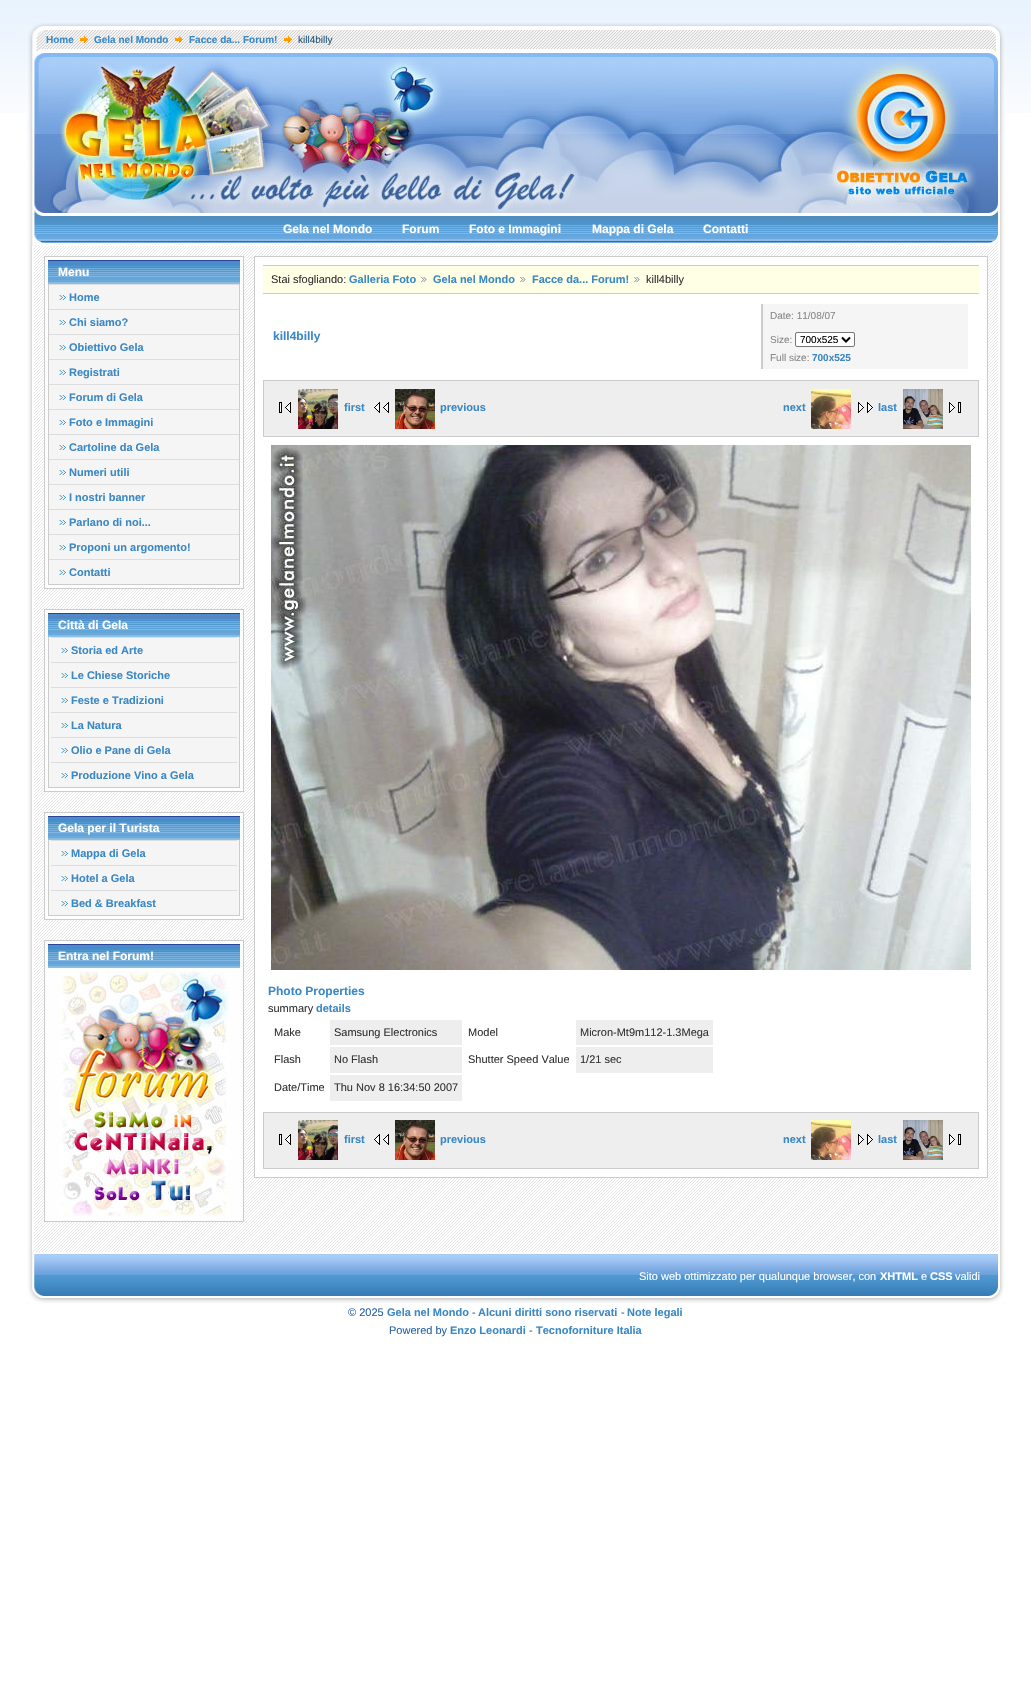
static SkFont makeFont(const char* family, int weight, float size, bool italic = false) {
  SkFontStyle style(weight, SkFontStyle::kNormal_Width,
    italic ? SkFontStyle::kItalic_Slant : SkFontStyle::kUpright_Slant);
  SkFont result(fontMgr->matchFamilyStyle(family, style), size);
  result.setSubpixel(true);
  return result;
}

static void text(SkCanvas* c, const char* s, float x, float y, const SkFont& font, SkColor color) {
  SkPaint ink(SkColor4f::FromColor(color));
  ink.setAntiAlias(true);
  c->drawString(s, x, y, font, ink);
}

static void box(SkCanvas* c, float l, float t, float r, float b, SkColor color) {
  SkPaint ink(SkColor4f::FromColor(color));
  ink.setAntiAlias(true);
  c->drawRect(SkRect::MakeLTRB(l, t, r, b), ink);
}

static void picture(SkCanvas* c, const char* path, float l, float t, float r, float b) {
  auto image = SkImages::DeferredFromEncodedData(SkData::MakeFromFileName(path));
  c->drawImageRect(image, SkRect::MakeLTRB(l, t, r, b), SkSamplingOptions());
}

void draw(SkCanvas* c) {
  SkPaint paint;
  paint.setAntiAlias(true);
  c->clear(0xffffffff);
  picture(c, "img_01.png", 0, 0, 1031, 113);
  picture(c, "img_02.png", 26, 246, 34, 1252);
  picture(c, "img_03.png", 998, 246, 1006, 1252);
  picture(c, "img_04.png", 26, 20, 1006, 49);
  picture(c, "img_05.png", 26, 23, 46, 49);
  picture(c, "img_06.png", 989, 23, 1006, 49);
  SkFont face1 = makeFont("Liberation Sans", 700, 10);
  text(c, "Home", 46, 43, face1, 0xff3b88c5);
  picture(c, "img_07.png", 80, 36, 88, 43);
  text(c, "Gela nel Mondo", 94, 43, face1, 0xff3b88c5);
  picture(c, "img_08.png", 175, 36, 183, 43);
  text(c, "Facce da... Forum!", 189, 43, face1, 0xff3b88c5);
  picture(c, "img_07.png", 284, 36, 292, 43);
  SkFont face2 = makeFont("Liberation Sans", 400, 10);
  text(c, "kill4billy", 298, 43, face2, 0xff27557a);
  picture(c, "img_09.png", 26, 49, 986, 213);
  picture(c, "img_10.png", 986, 49, 1006, 213);
  picture(c, "img_11.png", 29, 49, 47, 213);
  picture(c, "img_12.png", 44, 213, 989, 246);
  picture(c, "img_13.png", 989, 213, 1006, 246);
  picture(c, "img_14.png", 26, 213, 44, 246);
  SkFont face3 = makeFont("Liberation Sans", 700, 12);
  text(c, "Gela nel Mondo", 283, 233, face3, 0xfffefefe);
  text(c, "Forum", 402, 233, face3, 0xfffefefe);
  text(c, "Foto e Immagini", 469, 233, face3, 0xfffefefe);
  text(c, "Mappa di Gela", 592, 233, face3, 0xfffefefe);
  text(c, "Contatti", 703, 233, face3, 0xfffefefe);
  picture(c, "img_15.png", 34, 246, 998, 1252);
  paint.setColor(0xfffefefe);
  c->drawRect(SkRect::MakeLTRB(44.5f, 256.5f, 243.5f, 588.5f), paint);
  paint.setStyle(SkPaint::kStroke_Style);
  paint.setStrokeWidth(1);
  paint.setColor(0xffcccccc);
  c->drawRect(SkRect::MakeLTRB(44.5f, 256.5f, 243.5f, 588.5f), paint);
  picture(c, "img_16.png", 48, 260, 240, 284);
  text(c, "Menu", 58, 276, face3, 0xfffefefe);
  box(c, 239, 284, 240, 585, 0xffcccccc);
  box(c, 48, 584, 240, 585, 0xffcccccc);
  box(c, 48, 284, 49, 585, 0xffcccccc);
  box(c, 49, 285, 239, 309, 0xfff5f5f5);
  picture(c, "img_17.png", 59, 295, 66, 300);
  box(c, 49, 284, 239, 285, 0xffdddddd);
  SkFont face4 = makeFont("Liberation Sans", 700, 11);
  text(c, "Home", 69, 301, face4, 0xff3b88c5);
  box(c, 49, 310, 239, 334, 0xfff5f5f5);
  picture(c, "img_17.png", 59, 320, 66, 325);
  box(c, 49, 309, 239, 310, 0xffdddddd);
  text(c, "Chi siamo?", 69, 326, face4, 0xff3b88c5);
  box(c, 49, 335, 239, 359, 0xfff5f5f5);
  picture(c, "img_17.png", 59, 345, 66, 350);
  box(c, 49, 334, 239, 335, 0xffdddddd);
  text(c, "Obiettivo Gela", 69, 351, face4, 0xff3b88c5);
  box(c, 49, 360, 239, 384, 0xfff5f5f5);
  picture(c, "img_17.png", 59, 370, 66, 375);
  box(c, 49, 359, 239, 360, 0xffdddddd);
  text(c, "Registrati", 69, 376, face4, 0xff3b88c5);
  box(c, 49, 385, 239, 409, 0xfff5f5f5);
  picture(c, "img_17.png", 59, 395, 66, 400);
  box(c, 49, 384, 239, 385, 0xffdddddd);
  text(c, "Forum di Gela", 69, 401, face4, 0xff3b88c5);
  box(c, 49, 410, 239, 434, 0xfff5f5f5);
  picture(c, "img_17.png", 59, 420, 66, 425);
  box(c, 49, 409, 239, 410, 0xffdddddd);
  text(c, "Foto e Immagini", 69, 426, face4, 0xff3b88c5);
  box(c, 49, 435, 239, 459, 0xfff5f5f5);
  picture(c, "img_17.png", 59, 445, 66, 450);
  box(c, 49, 434, 239, 435, 0xffdddddd);
  text(c, "Cartoline da Gela", 69, 451, face4, 0xff3b88c5);
  box(c, 49, 460, 239, 484, 0xfff5f5f5);
  picture(c, "img_17.png", 59, 470, 66, 475);
  box(c, 49, 459, 239, 460, 0xffdddddd);
  text(c, "Numeri utili", 69, 476, face4, 0xff3b88c5);
  box(c, 49, 485, 239, 509, 0xfff5f5f5);
  picture(c, "img_17.png", 59, 495, 66, 500);
  box(c, 49, 484, 239, 485, 0xffdddddd);
  text(c, "I nostri banner", 69, 501, face4, 0xff3b88c5);
  box(c, 49, 510, 239, 534, 0xfff5f5f5);
  picture(c, "img_17.png", 59, 520, 66, 525);
  box(c, 49, 509, 239, 510, 0xffdddddd);
  text(c, "Parlano di noi...", 69, 526, face4, 0xff3b88c5);
  box(c, 49, 535, 239, 559, 0xfff5f5f5);
  picture(c, "img_17.png", 59, 545, 66, 550);
  box(c, 49, 534, 239, 535, 0xffdddddd);
  text(c, "Proponi un argomento!", 69, 551, face4, 0xff3b88c5);
  box(c, 49, 560, 239, 584, 0xfff5f5f5);
  picture(c, "img_17.png", 59, 570, 66, 575);
  box(c, 49, 559, 239, 560, 0xffdddddd);
  text(c, "Contatti", 69, 576, face4, 0xff3b88c5);
  paint.setStyle(SkPaint::kFill_Style);
  paint.setColor(0xfffefefe);
  c->drawRect(SkRect::MakeLTRB(44.5f, 609.5f, 243.5f, 791.5f), paint);
  paint.setStyle(SkPaint::kStroke_Style);
  paint.setColor(0xffcccccc);
  c->drawRect(SkRect::MakeLTRB(44.5f, 609.5f, 243.5f, 791.5f), paint);
  picture(c, "img_16.png", 48, 613, 240, 637);
  text(c, "Città di Gela", 58, 629, face3, 0xfffefefe);
  box(c, 239, 637, 240, 788, 0xffcccccc);
  box(c, 48, 787, 240, 788, 0xffcccccc);
  box(c, 48, 637, 49, 788, 0xffcccccc);
  box(c, 49, 637, 239, 787, 0xfff5f5f5);
  picture(c, "img_17.png", 61, 648, 68, 653);
  box(c, 51, 637, 237, 638, 0xffdddddd);
  text(c, "Storia ed Arte", 71, 654, face4, 0xff3b88c5);
  picture(c, "img_17.png", 61, 673, 68, 678);
  box(c, 51, 662, 237, 663, 0xffdddddd);
  text(c, "Le Chiese Storiche", 71, 679, face4, 0xff3b88c5);
  picture(c, "img_17.png", 61, 698, 68, 703);
  box(c, 51, 687, 237, 688, 0xffdddddd);
  text(c, "Feste e Tradizioni", 71, 704, face4, 0xff3b88c5);
  picture(c, "img_17.png", 61, 723, 68, 728);
  box(c, 51, 712, 237, 713, 0xffdddddd);
  text(c, "La Natura", 71, 729, face4, 0xff3b88c5);
  picture(c, "img_17.png", 61, 748, 68, 753);
  box(c, 51, 737, 237, 738, 0xffdddddd);
  text(c, "Olio e Pane di Gela", 71, 754, face4, 0xff3b88c5);
  picture(c, "img_17.png", 61, 773, 68, 778);
  box(c, 51, 762, 237, 763, 0xffdddddd);
  text(c, "Produzione Vino a Gela", 71, 779, face4, 0xff3b88c5);
  paint.setStyle(SkPaint::kFill_Style);
  paint.setColor(0xfffefefe);
  c->drawRect(SkRect::MakeLTRB(44.5f, 812.5f, 243.5f, 919.5f), paint);
  paint.setStyle(SkPaint::kStroke_Style);
  paint.setColor(0xffcccccc);
  c->drawRect(SkRect::MakeLTRB(44.5f, 812.5f, 243.5f, 919.5f), paint);
  picture(c, "img_16.png", 48, 816, 240, 840);
  text(c, "Gela per il Turista", 58, 832, face3, 0xfffefefe);
  box(c, 239, 840, 240, 916, 0xffcccccc);
  box(c, 48, 915, 240, 916, 0xffcccccc);
  box(c, 48, 840, 49, 916, 0xffcccccc);
  box(c, 49, 840, 239, 915, 0xfff5f5f5);
  picture(c, "img_17.png", 61, 851, 68, 856);
  box(c, 51, 840, 237, 841, 0xffdddddd);
  text(c, "Mappa di Gela", 71, 857, face4, 0xff3b88c5);
  picture(c, "img_17.png", 61, 876, 68, 881);
  box(c, 51, 865, 237, 866, 0xffdddddd);
  text(c, "Hotel a Gela", 71, 882, face4, 0xff3b88c5);
  picture(c, "img_17.png", 61, 901, 68, 906);
  box(c, 51, 890, 237, 891, 0xffdddddd);
  text(c, "Bed & Breakfast", 71, 907, face4, 0xff3b88c5);
  paint.setStyle(SkPaint::kFill_Style);
  paint.setColor(0xfffefefe);
  c->drawRect(SkRect::MakeLTRB(44.5f, 940.5f, 243.5f, 1221.5f), paint);
  paint.setStyle(SkPaint::kStroke_Style);
  paint.setColor(0xffcccccc);
  c->drawRect(SkRect::MakeLTRB(44.5f, 940.5f, 243.5f, 1221.5f), paint);
  picture(c, "img_16.png", 48, 944, 240, 968);
  text(c, "Entra nel Forum!", 58, 960, face3, 0xfffefefe);
  picture(c, "img_18.png", 60, 968, 229, 1216);
  paint.setStyle(SkPaint::kFill_Style);
  paint.setColor(0xffffffff);
  c->drawRect(SkRect::MakeLTRB(254.5f, 256.5f, 987.5f, 1177.5f), paint);
  paint.setStyle(SkPaint::kStroke_Style);
  paint.setColor(0xffcccccc);
  c->drawRect(SkRect::MakeLTRB(254.5f, 256.5f, 987.5f, 1177.5f), paint);
  box(c, 263, 265, 979, 266, 0xffcccccc);
  box(c, 263, 293, 979, 294, 0xffcccccc);
  box(c, 263, 266, 979, 293, 0xffffffe6);
  SkFont face5 = makeFont("Liberation Sans", 400, 11);
  text(c, "Stai sfogliando:", 271, 283, face5, 0xff333333);
  text(c, "Galleria Foto", 349, 283, face4, 0xff3b88c5);
  picture(c, "img_19.png", 421, 277, 427, 282);
  text(c, "Gela nel Mondo", 433, 283, face4, 0xff3b88c5);
  picture(c, "img_19.png", 520, 277, 526, 282);
  text(c, "Facce da... Forum!", 532, 283, face4, 0xff3b88c5);
  picture(c, "img_19.png", 634, 277, 640, 282);
  text(c, "kill4billy", 646, 283, face5, 0xff333333);
  text(c, "kill4billy", 273, 340, face3, 0xff3b88c5);
  box(c, 763, 304, 968, 369, 0xfff5f5f5);
  box(c, 761, 304, 763, 369, 0xffcccccc);
  text(c, "Date: 11/08/07", 770, 319, face2, 0xff888888);
  text(c, "Size:", 770, 343, face2, 0xff888888);
  paint.setStyle(SkPaint::kFill_Style);
  paint.setColor(0xffffffff);
  c->drawRoundRect(SkRect::MakeLTRB(795.5f, 332.5f, 854.5f, 346.5f), 1.5f, 1.5f, paint);
  paint.setStyle(SkPaint::kStroke_Style);
  paint.setColor(0xff767676);
  c->drawRoundRect(SkRect::MakeLTRB(795.5f, 332.5f, 854.5f, 346.5f), 1.5f, 1.5f, paint);
  paint.setStrokeWidth(2);
  paint.setColor(0xff000000);
  c->drawPath(SkPathBuilder().moveTo(842, 337.5f).lineTo(846, 341.5f).lineTo(850, 337.5f).detach(), paint);
  text(c, "700x525", 800, 343, face2, 0xff000000);
  text(c, "Full size:", 770, 361, face2, 0xff888888);
  text(c, "700x525", 812, 361, face1, 0xff3b88c5);
  paint.setStyle(SkPaint::kFill_Style);
  paint.setColor(0xffeeeeee);
  c->drawRect(SkRect::MakeLTRB(263.5f, 380.5f, 978.5f, 436.5f), paint);
  paint.setStyle(SkPaint::kStroke_Style);
  paint.setStrokeWidth(1);
  paint.setColor(0xffcccccc);
  c->drawRect(SkRect::MakeLTRB(263.5f, 380.5f, 978.5f, 436.5f), paint);
  picture(c, "img_20.png", 279, 402, 291, 413);
  picture(c, "img_21.png", 298, 389, 338, 429);
  text(c, "first", 344, 411, face4, 0xff3b88c5);
  picture(c, "img_22.png", 374, 402, 389, 413);
  picture(c, "img_23.png", 395, 389, 435, 429);
  text(c, "previous", 440, 411, face4, 0xff3b88c5);
  text(c, "next", 783, 411, face4, 0xff3b88c5);
  picture(c, "img_24.png", 811, 389, 851, 429);
  picture(c, "img_25.png", 858, 402, 873, 413);
  text(c, "last", 878, 411, face4, 0xff3b88c5);
  picture(c, "img_26.png", 903, 389, 943, 429);
  picture(c, "img_27.png", 949, 402, 961, 413);
  picture(c, "img_28.png", 271, 445, 971, 970);
  text(c, "Photo Properties", 268, 995, face3, 0xff3b88c5);
  text(c, "summary", 268, 1012, face5, 0xff333333);
  text(c, "details", 316, 1012, face4, 0xff3b88c5);
  text(c, "Make", 274, 1036, face5, 0xff333333);
  box(c, 330, 1020, 462, 1045, 0xffeeeeee);
  text(c, "Samsung Electronics", 334, 1036, face5, 0xff333333);
  text(c, "Model", 468, 1036, face5, 0xff333333);
  box(c, 576, 1020, 713, 1045, 0xffeeeeee);
  text(c, "Micron-Mt9m112-1.3Mega", 580, 1036, face5, 0xff333333);
  text(c, "Flash", 274, 1063, face5, 0xff333333);
  box(c, 330, 1047, 462, 1073, 0xffeeeeee);
  text(c, "No Flash", 334, 1063, face5, 0xff333333);
  text(c, "Shutter Speed Value", 468, 1063, face5, 0xff333333);
  box(c, 576, 1047, 713, 1073, 0xffeeeeee);
  text(c, "1/21 sec", 580, 1063, face5, 0xff333333);
  text(c, "Date/Time", 274, 1091, face5, 0xff333333);
  box(c, 330, 1075, 462, 1101, 0xffeeeeee);
  text(c, "Thu Nov 8 16:34:50 2007", 334, 1091, face5, 0xff333333);
  paint.setStyle(SkPaint::kFill_Style);
  paint.setColor(0xffeeeeee);
  c->drawRect(SkRect::MakeLTRB(263.5f, 1112.5f, 978.5f, 1168.5f), paint);
  paint.setStyle(SkPaint::kStroke_Style);
  paint.setColor(0xffcccccc);
  c->drawRect(SkRect::MakeLTRB(263.5f, 1112.5f, 978.5f, 1168.5f), paint);
  picture(c, "img_20.png", 279, 1134, 291, 1145);
  picture(c, "img_29.png", 298, 1120, 338, 1160);
  text(c, "first", 344, 1143, face4, 0xff3b88c5);
  picture(c, "img_22.png", 374, 1134, 389, 1145);
  picture(c, "img_30.png", 395, 1120, 435, 1160);
  text(c, "previous", 440, 1143, face4, 0xff3b88c5);
  text(c, "next", 783, 1143, face4, 0xff3b88c5);
  picture(c, "img_31.png", 811, 1120, 851, 1160);
  picture(c, "img_25.png", 858, 1134, 873, 1145);
  text(c, "last", 878, 1143, face4, 0xff3b88c5);
  picture(c, "img_32.png", 903, 1120, 943, 1160);
  picture(c, "img_27.png", 949, 1134, 961, 1145);
  picture(c, "img_33.png", 26, 1252, 1006, 1304);
  picture(c, "img_34.png", 26, 1252, 45, 1303);
  picture(c, "img_35.png", 988, 1252, 1006, 1303);
  text(c, "Sito web ottimizzato per qualunque browser, con", 639, 1280, face5, 0xfffefefe);
  text(c, "XHTML", 880, 1280, face4, 0xfffefefe);
  text(c, "e", 921, 1280, face5, 0xfffefefe);
  text(c, "CSS", 930, 1280, face4, 0xfffefefe);
  text(c, "validi", 955, 1280, face5, 0xfffefefe);
  text(c, "© 2025", 348, 1316, face5, 0xff2861a4);
  text(c, "Gela nel Mondo", 387, 1316, face4, 0xff3b88c5);
  text(c, "-", 472, 1316, face5, 0xff2861a4);
  text(c, "Alcuni diritti sono riservati", 478, 1316, face4, 0xff3b88c5);
  text(c, "-", 621, 1316, face5, 0xff2861a4);
  text(c, "Note legali", 627, 1316, face4, 0xff3b88c5);
  text(c, "Powered by", 389, 1334, face5, 0xff2861a4);
  text(c, "Enzo Leonardi", 450, 1334, face4, 0xff3b88c5);
  text(c, "-", 529, 1334, face5, 0xff2861a4);
  text(c, "Tecnoforniture Italia", 536, 1334, face4, 0xff3b88c5);
}
